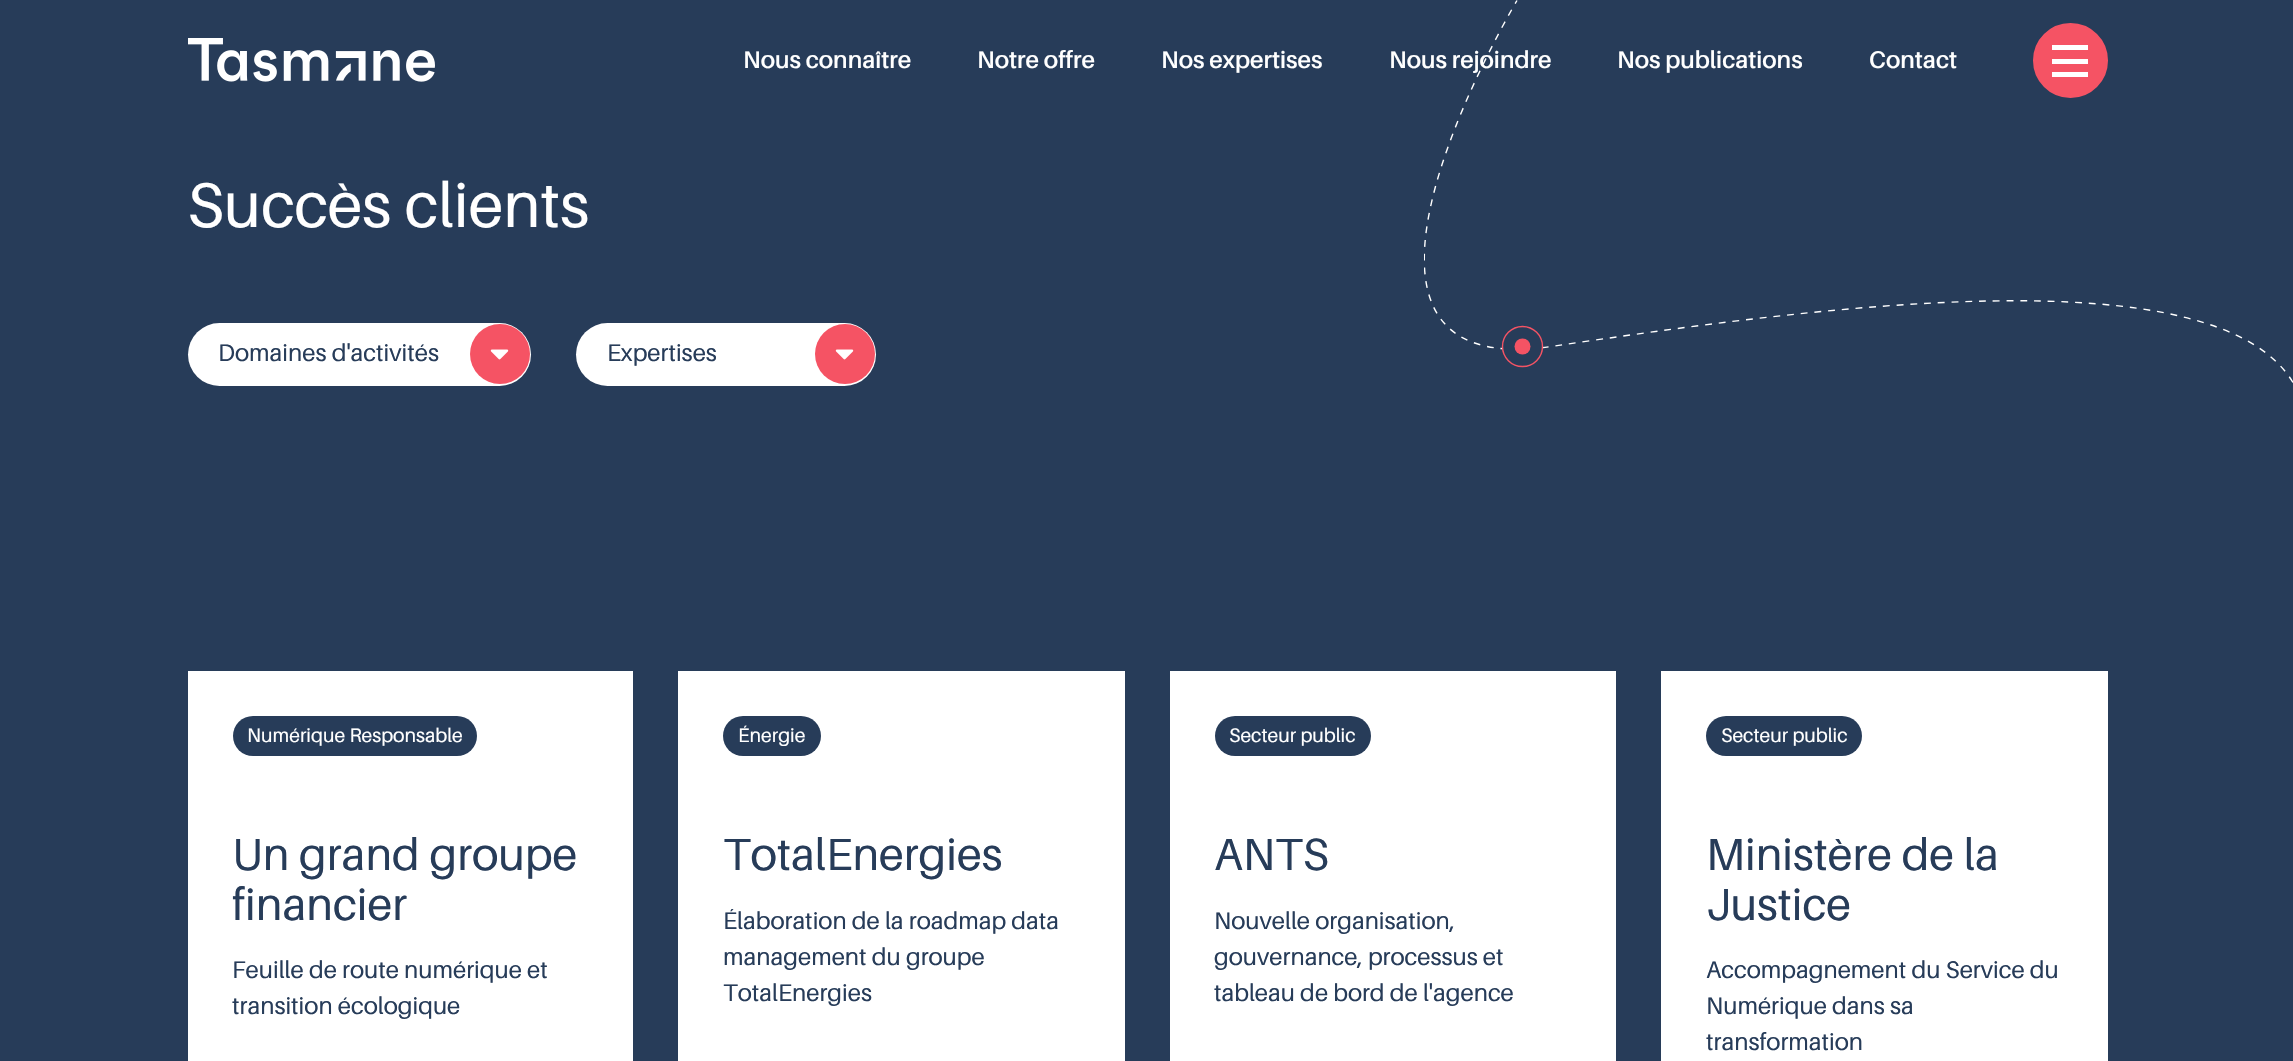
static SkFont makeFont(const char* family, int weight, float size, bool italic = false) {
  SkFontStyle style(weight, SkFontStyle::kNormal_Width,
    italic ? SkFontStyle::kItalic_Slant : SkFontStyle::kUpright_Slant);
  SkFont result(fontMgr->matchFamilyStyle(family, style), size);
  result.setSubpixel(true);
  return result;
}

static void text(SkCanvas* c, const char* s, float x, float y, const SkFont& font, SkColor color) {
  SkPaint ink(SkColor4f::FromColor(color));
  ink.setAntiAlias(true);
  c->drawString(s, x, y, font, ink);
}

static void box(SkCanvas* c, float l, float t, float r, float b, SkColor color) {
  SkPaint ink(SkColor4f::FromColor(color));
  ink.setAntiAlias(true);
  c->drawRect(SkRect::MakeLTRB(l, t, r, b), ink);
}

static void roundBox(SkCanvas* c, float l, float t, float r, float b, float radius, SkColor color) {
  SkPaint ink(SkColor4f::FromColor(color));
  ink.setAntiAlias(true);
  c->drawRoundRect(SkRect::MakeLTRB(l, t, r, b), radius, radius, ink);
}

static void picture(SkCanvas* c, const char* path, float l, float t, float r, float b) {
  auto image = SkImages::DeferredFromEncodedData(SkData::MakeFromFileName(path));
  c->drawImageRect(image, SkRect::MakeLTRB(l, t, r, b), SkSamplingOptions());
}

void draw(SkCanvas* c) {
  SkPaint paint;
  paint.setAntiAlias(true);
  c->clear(0xff273c59);
  picture(c, "img_01.png", 188, 38, 435, 82);
  SkFont face1 = makeFont("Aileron", 600, 24);
  text(c, "Nous connaître", 743, 68, face1, 0xffffffff);
  text(c, "Notre offre", 977, 68, face1, 0xffffffff);
  text(c, "Nos expertises", 1161, 68, face1, 0xffffffff);
  c->save();
  c->clipRect(SkRect::MakeLTRB(1424, 0, 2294, 383));
  paint.setStyle(SkPaint::kStroke_Style);
  paint.setStrokeWidth(1.4f);
  paint.setColor(0xffffffff);
  paint.setPathEffect(SkDashPathEffect::Make({{6.87f, 6.87f}}, 0));
  c->drawPath(SkPathBuilder().moveTo(2293, 382.5f).cubicTo(2214.5f, 252.5f, 1816.5f, 307, 1551.5f, 346.5f).cubicTo(1287, 385.5f, 1517, 0.5f, 1517, 0.5f).detach(), paint);
  paint.setPathEffect(nullptr);
  c->restore();
  text(c, "Nous rejoindre", 1389, 68, face1, 0xffffffff);
  text(c, "Nos publications", 1617, 68, face1, 0xffffffff);
  text(c, "Contact", 1869, 68, face1, 0xffffffff);
  paint.setStyle(SkPaint::kFill_Style);
  paint.setColor(0xfff55364);
  c->drawCircle(2070.5f, 60.5f, 36.5f, paint);
  paint.setStyle(SkPaint::kStroke_Style);
  paint.setStrokeWidth(2);
  c->drawCircle(2070.5f, 60.5f, 36.5f, paint);
  box(c, 2052, 45, 2088, 50, 0xffffffff);
  box(c, 2052, 59, 2088, 64, 0xffffffff);
  box(c, 2052, 72, 2088, 77, 0xffffffff);
  SkFont face2 = makeFont("Aileron", 400, 63);
  text(c, "Succès clients", 187, 227, face2, 0xffffffff);
  roundBox(c, 188, 323, 531, 386, 31.5f, 0xffffffff);
  SkFont face3 = makeFont("Aileron", 400, 24);
  text(c, "Domaines d'activités", 218, 361, face3, 0xff273c59);
  paint.setStyle(SkPaint::kFill_Style);
  c->drawCircle(500, 354, 30, paint);
  picture(c, "img_02.png", 490, 349, 509, 360);
  roundBox(c, 576, 323, 876, 386, 31.5f, 0xffffffff);
  text(c, "Expertises", 607, 361, face3, 0xff273c59);
  c->drawCircle(845, 354, 30, paint);
  picture(c, "img_02.png", 835, 349, 854, 360);
  paint.setColor(0xff273c59);
  c->drawCircle(1522.5f, 346.5f, 20.5f, paint);
  paint.setStyle(SkPaint::kStroke_Style);
  paint.setStrokeWidth(1.4f);
  paint.setColor(0xfff55364);
  c->drawCircle(1522.5f, 346.5f, 20, paint);
  paint.setStyle(SkPaint::kFill_Style);
  c->drawCircle(1522.5f, 346.5f, 8, paint);
  box(c, 188, 671, 633, 1061, 0xffffffff);
  roundBox(c, 233, 716, 477, 756, 20, 0xff273c59);
  SkFont face4 = makeFont("Aileron", 400, 19.5f);
  text(c, "Numérique Responsable", 247, 742, face4, 0xffffffff);
  SkFont face5 = makeFont("Aileron", 400, 45);
  text(c, "Un grand groupe", 232, 870, face5, 0xff273c59);
  text(c, "financier", 232, 920, face5, 0xff273c59);
  text(c, "Feuille de route numérique et", 232, 978, face3, 0xff273c59);
  text(c, "transition écologique", 232, 1014, face3, 0xff273c59);
  box(c, 678, 671, 1125, 1061, 0xffffffff);
  roundBox(c, 723, 716, 821, 756, 20, 0xff273c59);
  text(c, "Énergie", 738, 742, face4, 0xffffffff);
  text(c, "TotalEnergies", 723, 870, face5, 0xff273c59);
  text(c, "Élaboration de la roadmap data", 723, 929, face3, 0xff273c59);
  text(c, "management du groupe", 723, 965, face3, 0xff273c59);
  text(c, "TotalEnergies", 723, 1001, face3, 0xff273c59);
  box(c, 1170, 671, 1616, 1061, 0xffffffff);
  roundBox(c, 1215, 716, 1371, 756, 20, 0xff273c59);
  text(c, "Secteur public", 1229, 742, face4, 0xffffffff);
  text(c, "ANTS", 1214, 870, face5, 0xff273c59);
  text(c, "Nouvelle organisation,", 1214, 929, face3, 0xff273c59);
  text(c, "gouvernance, processus et", 1214, 965, face3, 0xff273c59);
  text(c, "tableau de bord de l'agence", 1214, 1001, face3, 0xff273c59);
  box(c, 1661, 671, 2108, 1061, 0xffffffff);
  roundBox(c, 1706, 716, 1862, 756, 20, 0xff273c59);
  text(c, "Secteur public", 1721, 742, face4, 0xffffffff);
  text(c, "Ministère de la", 1706, 870, face5, 0xff273c59);
  text(c, "Justice", 1706, 920, face5, 0xff273c59);
  text(c, "Accompagnement du Service du", 1706, 978, face3, 0xff273c59);
  text(c, "Numérique dans sa", 1706, 1014, face3, 0xff273c59);
  text(c, "transformation", 1706, 1050, face3, 0xff273c59);
}
